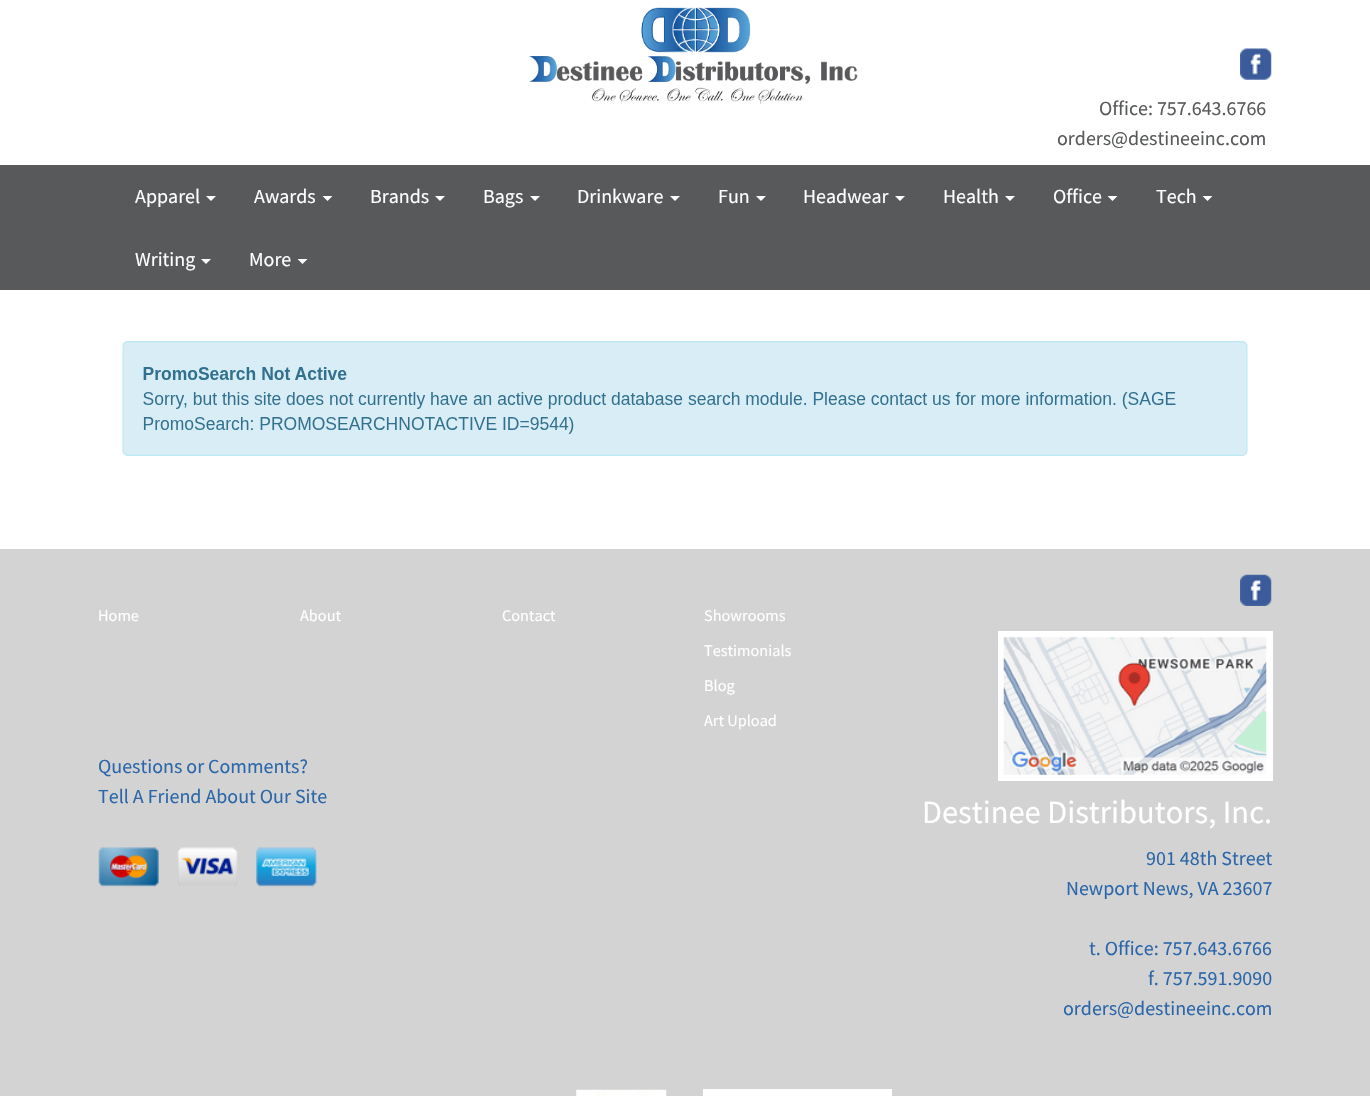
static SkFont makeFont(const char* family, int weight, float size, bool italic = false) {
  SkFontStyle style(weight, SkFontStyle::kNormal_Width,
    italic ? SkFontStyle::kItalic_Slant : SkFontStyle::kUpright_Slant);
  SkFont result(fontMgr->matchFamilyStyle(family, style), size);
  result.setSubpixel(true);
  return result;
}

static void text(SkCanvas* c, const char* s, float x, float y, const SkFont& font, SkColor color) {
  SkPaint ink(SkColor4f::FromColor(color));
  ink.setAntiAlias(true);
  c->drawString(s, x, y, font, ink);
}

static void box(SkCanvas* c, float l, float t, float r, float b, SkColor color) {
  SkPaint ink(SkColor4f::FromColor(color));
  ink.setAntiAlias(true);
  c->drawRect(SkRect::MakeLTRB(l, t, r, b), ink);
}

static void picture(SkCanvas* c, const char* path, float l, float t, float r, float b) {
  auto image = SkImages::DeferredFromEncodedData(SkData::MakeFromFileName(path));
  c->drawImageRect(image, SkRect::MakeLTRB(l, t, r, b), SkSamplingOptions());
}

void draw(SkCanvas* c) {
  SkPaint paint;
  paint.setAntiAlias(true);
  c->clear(0xffffffff);
  picture(c, "img_01.png", 529, 7, 858, 104);
  picture(c, "img_02.png", 1240, 48, 1272, 80);
  SkFont face1 = makeFont("Source Sans Pro", 400, 20);
  text(c, "Office: 757.643.6766", 1099, 115, face1, 0xff58595b);
  text(c, "orders@destineeinc.com", 1057, 145, face1, 0xff58595b);
  box(c, 0, 165, 1370, 290, 0xff58595b);
  text(c, "Apparel", 135, 203, face1, 0xffffffff);
  paint.setColor(0xffffffff);
  c->drawPath(SkPathBuilder().moveTo(206, 196).lineTo(216, 196).lineTo(211, 201).close().detach(), paint);
  text(c, "Awards", 254, 203, face1, 0xffffffff);
  c->drawPath(SkPathBuilder().moveTo(322.5f, 196).lineTo(332.5f, 196).lineTo(327.5f, 201).close().detach(), paint);
  text(c, "Brands", 370, 203, face1, 0xffffffff);
  c->drawPath(SkPathBuilder().moveTo(435, 196).lineTo(445, 196).lineTo(440, 201).close().detach(), paint);
  text(c, "Bags", 483, 203, face1, 0xffffffff);
  c->drawPath(SkPathBuilder().moveTo(530, 196).lineTo(540, 196).lineTo(535, 201).close().detach(), paint);
  text(c, "Drinkware", 577, 203, face1, 0xffffffff);
  c->drawPath(SkPathBuilder().moveTo(670, 196).lineTo(680, 196).lineTo(675, 201).close().detach(), paint);
  text(c, "Fun", 718, 203, face1, 0xffffffff);
  c->drawPath(SkPathBuilder().moveTo(756, 196).lineTo(766, 196).lineTo(761, 201).close().detach(), paint);
  text(c, "Headwear", 803, 203, face1, 0xffffffff);
  c->drawPath(SkPathBuilder().moveTo(895, 196).lineTo(905, 196).lineTo(900, 201).close().detach(), paint);
  text(c, "Health", 943, 203, face1, 0xffffffff);
  c->drawPath(SkPathBuilder().moveTo(1005, 196).lineTo(1015, 196).lineTo(1010, 201).close().detach(), paint);
  text(c, "Office", 1053, 203, face1, 0xffffffff);
  c->drawPath(SkPathBuilder().moveTo(1107.5f, 196).lineTo(1117.5f, 196).lineTo(1112.5f, 201).close().detach(), paint);
  text(c, "Tech", 1156, 203, face1, 0xffffffff);
  c->drawPath(SkPathBuilder().moveTo(1202.5f, 196).lineTo(1212.5f, 196).lineTo(1207.5f, 201).close().detach(), paint);
  text(c, "Writing", 135, 266, face1, 0xffffffff);
  c->drawPath(SkPathBuilder().moveTo(201, 259).lineTo(211, 259).lineTo(206, 264).close().detach(), paint);
  text(c, "More", 249, 266, face1, 0xffffffff);
  c->drawPath(SkPathBuilder().moveTo(297.5f, 259).lineTo(307.5f, 259).lineTo(302.5f, 264).close().detach(), paint);
  picture(c, "img_03.png", 122, 341, 1248, 456);
  box(c, 0, 549, 1370, 1096, 0xffd3d3d3);
  SkFont face2 = makeFont("Source Sans Pro", 400, 16.25f);
  text(c, "Home", 98, 621, face2, 0xffffffff);
  text(c, "About", 300, 621, face2, 0xffffffff);
  text(c, "Contact", 502, 621, face2, 0xffffffff);
  text(c, "Showrooms", 704, 621, face2, 0xffffffff);
  text(c, "Testimonials", 704, 656, face2, 0xffffffff);
  text(c, "Blog", 704, 691, face2, 0xffffffff);
  text(c, "Art Upload", 704, 726, face2, 0xffffffff);
  text(c, "Questions or Comments?", 98, 773, face1, 0xff2a66a9);
  text(c, "Tell A Friend About Our Site", 98, 803, face1, 0xff2a66a9);
  picture(c, "img_04.png", 98, 847, 159, 887);
  picture(c, "img_05.png", 177, 847, 238, 886);
  picture(c, "img_06.png", 256, 847, 317, 887);
  picture(c, "img_07.png", 1240, 574, 1272, 606);
  box(c, 998, 631, 1273, 781, 0xffffffff);
  picture(c, "img_08.png", 1003, 637, 1267, 775);
  SkFont face3 = makeFont("Source Sans Pro", 400, 32.5f);
  text(c, "Destinee Distributors, Inc.", 922, 823, face3, 0xffffffff);
  text(c, "901 48th Street", 1146, 865, face1, 0xff2a66a9);
  text(c, "Newport News, VA 23607", 1066, 895, face1, 0xff2a66a9);
  text(c, "t. Office: 757.643.6766", 1089, 955, face1, 0xff2a66a9);
  text(c, "f. 757.591.9090", 1148, 985, face1, 0xff2a66a9);
  text(c, "orders@destineeinc.com", 1063, 1015, face1, 0xff2a66a9);
  picture(c, "img_09.png", 576, 1089, 667, 1096);
  box(c, 703, 1089, 892, 1096, 0xffffffff);
}
